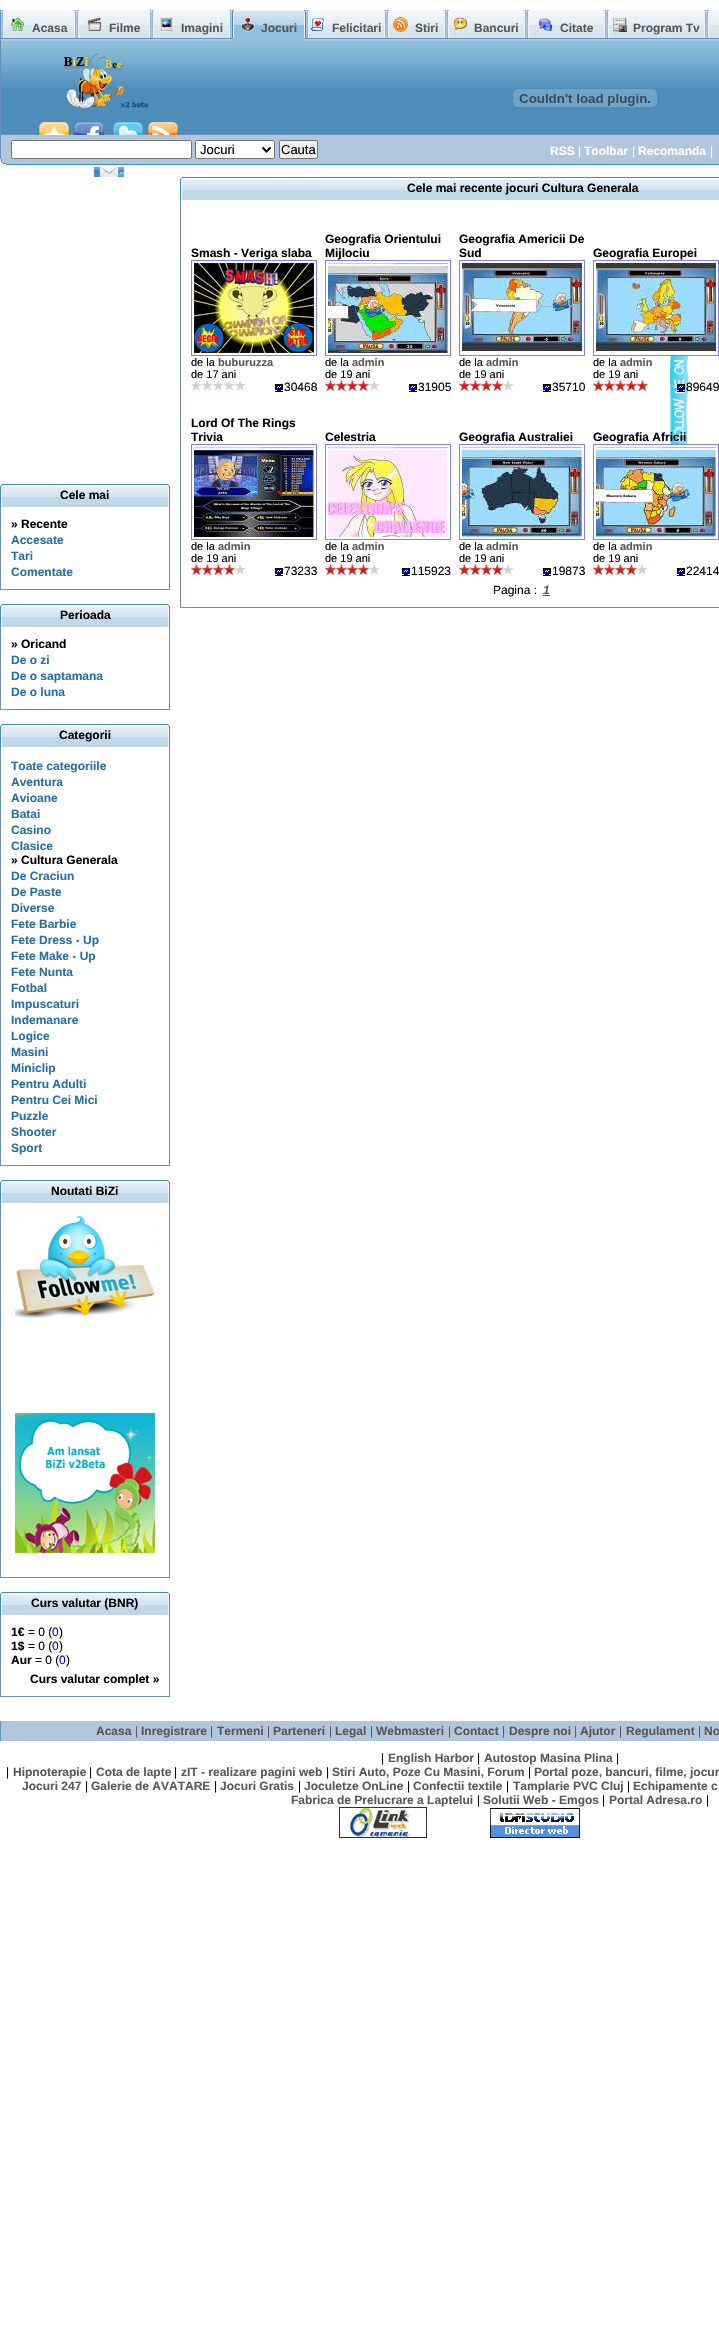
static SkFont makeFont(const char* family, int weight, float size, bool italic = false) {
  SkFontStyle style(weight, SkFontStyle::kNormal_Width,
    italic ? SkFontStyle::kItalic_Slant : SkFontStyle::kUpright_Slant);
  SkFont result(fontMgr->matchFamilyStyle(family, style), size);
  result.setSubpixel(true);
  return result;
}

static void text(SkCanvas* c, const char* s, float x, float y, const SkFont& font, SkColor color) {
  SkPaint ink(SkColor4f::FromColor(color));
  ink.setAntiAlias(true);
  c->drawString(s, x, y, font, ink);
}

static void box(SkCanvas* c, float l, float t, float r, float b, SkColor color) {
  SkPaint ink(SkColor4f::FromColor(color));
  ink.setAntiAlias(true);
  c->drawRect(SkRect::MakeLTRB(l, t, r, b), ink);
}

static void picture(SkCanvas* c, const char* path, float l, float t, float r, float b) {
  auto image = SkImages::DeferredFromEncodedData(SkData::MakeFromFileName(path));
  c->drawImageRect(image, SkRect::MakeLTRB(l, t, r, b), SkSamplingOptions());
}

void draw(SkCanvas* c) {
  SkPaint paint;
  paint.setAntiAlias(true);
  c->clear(0xffffffff);
  box(c, 1, 10, 708, 38, 0xffb1c5dd);
  box(c, 0, 11, 707, 12, 0xffffffff);
  box(c, 0, 10, 1, 38, 0xff6891bd);
  picture(c, "img_01.png", 2, 10, 74, 38);
  picture(c, "img_02.png", 10, 17, 25, 32);
  SkFont face1 = makeFont("Liberation Sans", 700, 12);
  text(c, "Acasa", 32, 32, face1, 0xff585858);
  picture(c, "img_03.png", 74, 10, 76, 38);
  picture(c, "img_01.png", 77, 10, 149, 38);
  picture(c, "img_04.png", 87, 17, 102, 32);
  text(c, "Filme", 109, 32, face1, 0xff585858);
  picture(c, "img_03.png", 149, 10, 151, 38);
  picture(c, "img_05.png", 152, 10, 229, 38);
  picture(c, "img_06.png", 160, 17, 173, 32);
  text(c, "Imagini", 181, 32, face1, 0xff585858);
  picture(c, "img_03.png", 229, 10, 231, 38);
  picture(c, "img_07.png", 232, 10, 304, 38);
  picture(c, "img_08.png", 241, 17, 255, 32);
  text(c, "Jocuri", 261, 32, face1, 0xff585858);
  picture(c, "img_09.png", 304, 10, 306, 38);
  picture(c, "img_05.png", 307, 10, 384, 38);
  picture(c, "img_10.png", 311, 18, 324, 31);
  text(c, "Felicitari", 332, 32, face1, 0xff585858);
  picture(c, "img_03.png", 384, 10, 386, 38);
  picture(c, "img_11.png", 387, 10, 444, 38);
  picture(c, "img_12.png", 393, 17, 408, 32);
  text(c, "Stiri", 415, 32, face1, 0xff585858);
  picture(c, "img_03.png", 444, 10, 446, 38);
  picture(c, "img_05.png", 447, 10, 524, 38);
  picture(c, "img_13.png", 453, 17, 468, 30);
  text(c, "Bancuri", 474, 32, face1, 0xff585858);
  picture(c, "img_03.png", 524, 10, 526, 38);
  picture(c, "img_05.png", 527, 10, 604, 38);
  picture(c, "img_14.png", 538, 18, 553, 32);
  text(c, "Citate", 560, 32, face1, 0xff585858);
  picture(c, "img_03.png", 604, 10, 606, 38);
  picture(c, "img_15.png", 607, 10, 704, 38);
  picture(c, "img_16.png", 612, 17, 627, 32);
  text(c, "Program Tv", 633, 32, face1, 0xff585858);
  picture(c, "img_03.png", 704, 10, 706, 38);
  picture(c, "img_17.png", 707, 10, 719, 38);
  picture(c, "img_18.png", 718, 19, 719, 30);
  box(c, 1, 88, 719, 134, 0xff4c8db9);
  picture(c, "img_19.png", 1, 39, 719, 88);
  paint.setStyle(SkPaint::kStroke_Style);
  paint.setStrokeWidth(1);
  paint.setColor(0xff6891bd);
  c->drawRect(SkRect::MakeLTRB(0.5f, 38.5f, 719.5f, 134.5f), paint);
  box(c, 232, 38, 305, 41, 0xff8fbfdc);
  picture(c, "img_20.png", 64, 53, 148, 108);
  picture(c, "img_21.png", 39, 122, 69, 135);
  picture(c, "img_22.png", 73, 122, 105, 135);
  picture(c, "img_23.png", 112, 122, 144, 135);
  picture(c, "img_24.png", 147, 122, 179, 135);
  picture(c, "img_25.png", 93, 167, 125, 177);
  picture(c, "img_26.png", 513, 89, 657, 107);
  picture(c, "img_27.png", 670, 356, 689, 444);
  box(c, 1, 135, 719, 159, 0xffb1c5dd);
  box(c, 0, 135, 1, 159, 0xff6891bd);
  paint.setStyle(SkPaint::kFill_Style);
  paint.setColor(0xffffffff);
  c->drawRoundRect(SkRect::MakeLTRB(11.5f, 140.5f, 191.5f, 158.5f), 1.5f, 1.5f, paint);
  paint.setStyle(SkPaint::kStroke_Style);
  paint.setColor(0xff767676);
  c->drawRoundRect(SkRect::MakeLTRB(11.5f, 140.5f, 191.5f, 158.5f), 1.5f, 1.5f, paint);
  paint.setStyle(SkPaint::kFill_Style);
  paint.setColor(0xffffffff);
  c->drawRoundRect(SkRect::MakeLTRB(195.5f, 140.5f, 274.5f, 158.5f), 1.5f, 1.5f, paint);
  paint.setStyle(SkPaint::kStroke_Style);
  paint.setColor(0xff767676);
  c->drawRoundRect(SkRect::MakeLTRB(195.5f, 140.5f, 274.5f, 158.5f), 1.5f, 1.5f, paint);
  paint.setStrokeWidth(2);
  paint.setColor(0xff000000);
  c->drawPath(SkPathBuilder().moveTo(262.5f, 147.5f).lineTo(266.5f, 151.5f).lineTo(270.5f, 147.5f).detach(), paint);
  SkFont face2 = makeFont("Liberation Sans", 400, 13);
  text(c, "Jocuri", 200, 154, face2, 0xff000000);
  paint.setStyle(SkPaint::kFill_Style);
  paint.setColor(0xffefefef);
  c->drawRoundRect(SkRect::MakeLTRB(279.5f, 140.5f, 317.5f, 158.5f), 1.5f, 1.5f, paint);
  paint.setStyle(SkPaint::kStroke_Style);
  paint.setStrokeWidth(1);
  paint.setColor(0xff767676);
  c->drawRoundRect(SkRect::MakeLTRB(279.5f, 140.5f, 317.5f, 158.5f), 1.5f, 1.5f, paint);
  text(c, "Cauta", 281, 154, face2, 0xff000000);
  text(c, "RSS", 550, 155, face1, 0xffffffff);
  SkFont face3 = makeFont("Liberation Sans", 400, 12);
  text(c, "|", 578, 155, face3, 0xffffffff);
  text(c, "Toolbar", 584, 155, face1, 0xffffffff);
  text(c, "|", 632, 155, face3, 0xffffffff);
  text(c, "Recomanda", 638, 155, face1, 0xffffffff);
  text(c, "|", 710, 155, face3, 0xffffffff);
  box(c, 0, 159, 719, 164, 0xffb1c5dd);
  picture(c, "img_28.png", 0, 159, 719, 167);
  picture(c, "img_29.png", 180, 177, 719, 200);
  text(c, "Cele mai recente jocuri Cultura Generala", 407, 192, face1, 0xff000000);
  box(c, 180, 607, 719, 608, 0xff6891bd);
  box(c, 180, 200, 181, 608, 0xff6891bd);
  text(c, "Smash - Veriga slaba", 191, 257, face1, 0xff000000);
  paint.setColor(0xff8080ff);
  c->drawRect(SkRect::MakeLTRB(191.5f, 260.5f, 316.5f, 355.5f), paint);
  picture(c, "img_30.png", 194, 263, 314, 353);
  SkFont face4 = makeFont("Liberation Sans", 400, 11);
  text(c, "de la", 191, 366, face4, 0xff000000);
  SkFont face5 = makeFont("Liberation Sans", 700, 11);
  text(c, "buburuzza", 218, 366, face5, 0xff585858);
  text(c, "de 17 ani", 191, 378, face4, 0xff000000);
  picture(c, "img_31.png", 191, 381, 246, 391);
  picture(c, "img_32.png", 275, 384, 283, 392);
  text(c, "30468", 284, 391, face3, 0xff000000);
  text(c, "Geografia Orientului", 325, 243, face1, 0xff000000);
  text(c, "Mijlociu", 325, 257, face1, 0xff000000);
  c->drawRect(SkRect::MakeLTRB(325.5f, 260.5f, 450.5f, 355.5f), paint);
  picture(c, "img_33.png", 328, 263, 448, 353);
  text(c, "de la", 325, 366, face4, 0xff000000);
  text(c, "admin", 352, 366, face5, 0xff585858);
  text(c, "de 19 ani", 325, 378, face4, 0xff000000);
  picture(c, "img_34.png", 325, 380, 380, 391);
  picture(c, "img_32.png", 409, 384, 417, 392);
  text(c, "31905", 418, 391, face3, 0xff000000);
  text(c, "Geografia Americii De", 459, 243, face1, 0xff000000);
  text(c, "Sud", 459, 257, face1, 0xff000000);
  c->drawRect(SkRect::MakeLTRB(459.5f, 260.5f, 584.5f, 355.5f), paint);
  picture(c, "img_35.png", 462, 263, 582, 351);
  text(c, "de la", 459, 366, face4, 0xff000000);
  text(c, "admin", 486, 366, face5, 0xff585858);
  text(c, "de 19 ani", 459, 378, face4, 0xff000000);
  picture(c, "img_34.png", 459, 380, 514, 391);
  picture(c, "img_32.png", 543, 384, 551, 392);
  text(c, "35710", 552, 391, face3, 0xff000000);
  text(c, "Geografia Europei", 593, 257, face1, 0xff000000);
  c->drawRect(SkRect::MakeLTRB(593.5f, 260.5f, 718.5f, 355.5f), paint);
  picture(c, "img_36.png", 596, 263, 716, 351);
  text(c, "de la", 593, 366, face4, 0xff000000);
  text(c, "admin", 620, 366, face5, 0xff585858);
  text(c, "de 19 ani", 593, 378, face4, 0xff000000);
  picture(c, "img_37.png", 593, 380, 648, 391);
  picture(c, "img_38.png", 677, 384, 685, 392);
  text(c, "89649", 686, 391, face3, 0xff000000);
  text(c, "Lord Of The Rings", 191, 427, face1, 0xff000000);
  text(c, "Trivia", 191, 441, face1, 0xff000000);
  c->drawRect(SkRect::MakeLTRB(191.5f, 444.5f, 316.5f, 539.5f), paint);
  picture(c, "img_39.png", 194, 447, 314, 537);
  text(c, "de la", 191, 550, face4, 0xff000000);
  text(c, "admin", 218, 550, face5, 0xff585858);
  text(c, "de 19 ani", 191, 562, face4, 0xff000000);
  picture(c, "img_34.png", 191, 564, 246, 575);
  picture(c, "img_32.png", 275, 568, 283, 576);
  text(c, "73233", 284, 575, face3, 0xff000000);
  text(c, "Celestria", 325, 441, face1, 0xff000000);
  c->drawRect(SkRect::MakeLTRB(325.5f, 444.5f, 450.5f, 539.5f), paint);
  picture(c, "img_40.png", 328, 447, 448, 537);
  text(c, "de la", 325, 550, face4, 0xff000000);
  text(c, "admin", 352, 550, face5, 0xff585858);
  text(c, "de 19 ani", 325, 562, face4, 0xff000000);
  picture(c, "img_34.png", 325, 564, 380, 575);
  picture(c, "img_32.png", 402, 568, 410, 576);
  text(c, "115923", 411, 575, face3, 0xff000000);
  text(c, "Geografia Australiei", 459, 441, face1, 0xff000000);
  c->drawRect(SkRect::MakeLTRB(459.5f, 444.5f, 584.5f, 539.5f), paint);
  picture(c, "img_41.png", 462, 447, 582, 537);
  text(c, "de la", 459, 550, face4, 0xff000000);
  text(c, "admin", 486, 550, face5, 0xff585858);
  text(c, "de 19 ani", 459, 562, face4, 0xff000000);
  picture(c, "img_34.png", 459, 564, 514, 575);
  picture(c, "img_32.png", 543, 568, 551, 576);
  text(c, "19873", 552, 575, face3, 0xff000000);
  text(c, "Geografia Africii", 593, 441, face1, 0xff000000);
  c->drawRect(SkRect::MakeLTRB(593.5f, 444.5f, 718.5f, 539.5f), paint);
  picture(c, "img_42.png", 596, 447, 716, 537);
  text(c, "de la", 593, 550, face4, 0xff000000);
  text(c, "admin", 620, 550, face5, 0xff585858);
  text(c, "de 19 ani", 593, 562, face4, 0xff000000);
  picture(c, "img_34.png", 593, 564, 648, 575);
  picture(c, "img_32.png", 677, 568, 685, 576);
  text(c, "22414", 686, 575, face3, 0xff000000);
  text(c, "Pagina :", 493, 594, face3, 0xff000000);
  SkFont face6 = makeFont("Liberation Sans", 700, 12, true);
  text(c, "1", 543, 594, face6, 0xff585858);
  box(c, 543, 595, 550, 596, 0xff585858);
  picture(c, "img_43.png", 0, 484, 168, 507);
  text(c, "Cele mai", 60, 499, face1, 0xff000000);
  picture(c, "img_44.png", 168, 484, 170, 507);
  box(c, 169, 507, 170, 590, 0xff6891bd);
  box(c, 0, 589, 170, 590, 0xff6891bd);
  box(c, 0, 507, 1, 590, 0xff6891bd);
  text(c, "» Recente", 11, 528, face1, 0xff000000);
  text(c, "Accesate", 11, 544, face1, 0xff2570a3);
  text(c, "Tari", 11, 560, face1, 0xff2570a3);
  text(c, "Comentate", 11, 576, face1, 0xff2570a3);
  picture(c, "img_43.png", 0, 604, 168, 627);
  text(c, "Perioada", 60, 619, face1, 0xff000000);
  picture(c, "img_44.png", 168, 604, 170, 627);
  box(c, 169, 627, 170, 710, 0xff6891bd);
  box(c, 0, 709, 170, 710, 0xff6891bd);
  box(c, 0, 627, 1, 710, 0xff6891bd);
  text(c, "» Oricand", 11, 648, face1, 0xff000000);
  text(c, "De o zi", 11, 664, face1, 0xff2570a3);
  text(c, "De o saptamana", 11, 680, face1, 0xff2570a3);
  text(c, "De o luna", 11, 696, face1, 0xff2570a3);
  picture(c, "img_43.png", 0, 724, 168, 747);
  text(c, "Categorii", 59, 739, face1, 0xff000000);
  picture(c, "img_44.png", 168, 724, 170, 747);
  box(c, 169, 747, 170, 1166, 0xff6891bd);
  box(c, 0, 1165, 170, 1166, 0xff6891bd);
  box(c, 0, 747, 1, 1166, 0xff6891bd);
  text(c, "Toate categoriile", 11, 770, face1, 0xff2570a3);
  text(c, "Aventura", 11, 786, face1, 0xff2570a3);
  text(c, "Avioane", 11, 802, face1, 0xff2570a3);
  text(c, "Batai", 11, 818, face1, 0xff2570a3);
  text(c, "Casino", 11, 834, face1, 0xff2570a3);
  text(c, "Clasice", 11, 850, face1, 0xff2570a3);
  text(c, "» Cultura Generala", 11, 864, face1, 0xff000000);
  text(c, "De Craciun", 11, 880, face1, 0xff2570a3);
  text(c, "De Paste", 11, 896, face1, 0xff2570a3);
  text(c, "Diverse", 11, 912, face1, 0xff2570a3);
  text(c, "Fete Barbie", 11, 928, face1, 0xff2570a3);
  text(c, "Fete Dress - Up", 11, 944, face1, 0xff2570a3);
  text(c, "Fete Make - Up", 11, 960, face1, 0xff2570a3);
  text(c, "Fete Nunta", 11, 976, face1, 0xff2570a3);
  text(c, "Fotbal", 11, 992, face1, 0xff2570a3);
  text(c, "Impuscaturi", 11, 1008, face1, 0xff2570a3);
  text(c, "Indemanare", 11, 1024, face1, 0xff2570a3);
  text(c, "Logice", 11, 1040, face1, 0xff2570a3);
  text(c, "Masini", 11, 1056, face1, 0xff2570a3);
  text(c, "Miniclip", 11, 1072, face1, 0xff2570a3);
  text(c, "Pentru Adulti", 11, 1088, face1, 0xff2570a3);
  text(c, "Pentru Cei Mici", 11, 1104, face1, 0xff2570a3);
  text(c, "Puzzle", 11, 1120, face1, 0xff2570a3);
  text(c, "Shooter", 11, 1136, face1, 0xff2570a3);
  text(c, "Sport", 11, 1152, face1, 0xff2570a3);
  picture(c, "img_43.png", 0, 1180, 168, 1203);
  text(c, "Noutati BiZi", 51, 1195, face1, 0xff000000);
  picture(c, "img_44.png", 168, 1180, 170, 1203);
  box(c, 169, 1203, 170, 1578, 0xff6891bd);
  box(c, 0, 1577, 170, 1578, 0xff6891bd);
  box(c, 0, 1203, 1, 1578, 0xff6891bd);
  picture(c, "img_45.png", 15, 1216, 155, 1318);
  picture(c, "img_46.png", 15, 1413, 155, 1553);
  picture(c, "img_43.png", 0, 1592, 168, 1615);
  text(c, "Curs valutar (BNR)", 31, 1607, face1, 0xff000000);
  picture(c, "img_44.png", 168, 1592, 170, 1615);
  box(c, 169, 1615, 170, 1697, 0xff6891bd);
  box(c, 0, 1696, 170, 1697, 0xff6891bd);
  box(c, 0, 1615, 1, 1697, 0xff6891bd);
  text(c, "1€", 11, 1636, face1, 0xff000000);
  text(c, "= 0 (", 28, 1636, face3, 0xff000000);
  text(c, "0", 52, 1636, face3, 0xff0000ff);
  text(c, ")", 59, 1636, face3, 0xff000000);
  text(c, "1$", 11, 1650, face1, 0xff000000);
  text(c, "= 0 (", 28, 1650, face3, 0xff000000);
  text(c, "0", 52, 1650, face3, 0xff0000ff);
  text(c, ")", 59, 1650, face3, 0xff000000);
  text(c, "Aur", 11, 1664, face1, 0xff000000);
  text(c, "= 0 (", 35, 1664, face3, 0xff000000);
  text(c, "0", 59, 1664, face3, 0xff0000ff);
  text(c, ")", 66, 1664, face3, 0xff000000);
  text(c, "Curs valutar complet »", 30, 1683, face1, 0xff000000);
  box(c, 1, 1721, 719, 1741, 0xffb1c5dd);
  box(c, 0, 1721, 1, 1741, 0xff6891bd);
  text(c, "Acasa", 96, 1735, face1, 0xff585858);
  text(c, "|", 135, 1735, face3, 0xff585858);
  text(c, "Inregistrare", 141, 1735, face1, 0xff585858);
  text(c, "|", 210, 1735, face3, 0xff585858);
  text(c, "Termeni", 217, 1735, face1, 0xff585858);
  text(c, "|", 267, 1735, face3, 0xff585858);
  text(c, "Parteneri", 273, 1735, face1, 0xff585858);
  text(c, "|", 329, 1735, face3, 0xff585858);
  text(c, "Legal", 335, 1735, face1, 0xff585858);
  text(c, "|", 370, 1735, face3, 0xff585858);
  text(c, "Webmasteri", 376, 1735, face1, 0xff585858);
  text(c, "|", 448, 1735, face3, 0xff585858);
  text(c, "Contact", 454, 1735, face1, 0xff585858);
  text(c, "|", 502, 1735, face3, 0xff585858);
  text(c, "Despre noi", 509, 1735, face1, 0xff585858);
  text(c, "|", 574, 1735, face3, 0xff585858);
  text(c, "Ajutor", 580, 1735, face1, 0xff585858);
  text(c, "|", 619, 1735, face3, 0xff585858);
  text(c, "Regulament", 626, 1735, face1, 0xff585858);
  text(c, "|", 698, 1735, face3, 0xff585858);
  text(c, "No", 704, 1735, face1, 0xff585858);
  text(c, "|", 381, 1762, face3, 0xff000000);
  text(c, "English Harbor", 388, 1762, face1, 0xff585858);
  text(c, "|", 477, 1762, face3, 0xff000000);
  text(c, "Autostop Masina Plina", 484, 1762, face1, 0xff585858);
  text(c, "|", 616, 1762, face3, 0xff000000);
  text(c, "|", 6, 1776, face3, 0xff000000);
  text(c, "Hipnoterapie", 13, 1776, face1, 0xff585858);
  text(c, "|", 89, 1776, face3, 0xff000000);
  text(c, "Cota de lapte", 96, 1776, face1, 0xff585858);
  text(c, "|", 174, 1776, face3, 0xff000000);
  text(c, "zIT - realizare pagini web", 181, 1776, face1, 0xff585858);
  text(c, "|", 326, 1776, face3, 0xff000000);
  text(c, "Stiri Auto, Poze Cu Masini, Forum", 332, 1776, face1, 0xff585858);
  text(c, "|", 528, 1776, face3, 0xff000000);
  text(c, "Portal poze, bancuri, filme, jocur", 534, 1776, face1, 0xff585858);
  text(c, "Jocuri 247", 22, 1790, face1, 0xff585858);
  text(c, "|", 85, 1790, face3, 0xff000000);
  text(c, "Galerie de AVATARE", 91, 1790, face1, 0xff585858);
  text(c, "|", 214, 1790, face3, 0xff000000);
  text(c, "Jocuri Gratis", 220, 1790, face1, 0xff585858);
  text(c, "|", 298, 1790, face3, 0xff000000);
  text(c, "Joculetze OnLine", 304, 1790, face1, 0xff585858);
  text(c, "|", 407, 1790, face3, 0xff000000);
  text(c, "Confectii textile", 413, 1790, face1, 0xff585858);
  text(c, "|", 506, 1790, face3, 0xff000000);
  text(c, "Tamplarie PVC Cluj", 513, 1790, face1, 0xff585858);
  text(c, "|", 627, 1790, face3, 0xff000000);
  text(c, "Echipamente c", 633, 1790, face1, 0xff585858);
  text(c, "Fabrica de Prelucrare a Laptelui", 291, 1804, face1, 0xff585858);
  text(c, "|", 477, 1804, face3, 0xff000000);
  text(c, "Solutii Web - Emgos", 483, 1804, face1, 0xff585858);
  text(c, "|", 602, 1804, face3, 0xff000000);
  text(c, "Portal Adresa.ro", 609, 1804, face1, 0xff585858);
  text(c, "|", 706, 1804, face3, 0xff000000);
  picture(c, "img_47.png", 339, 1807, 427, 1838);
  picture(c, "img_48.png", 490, 1808, 580, 1838);
}
